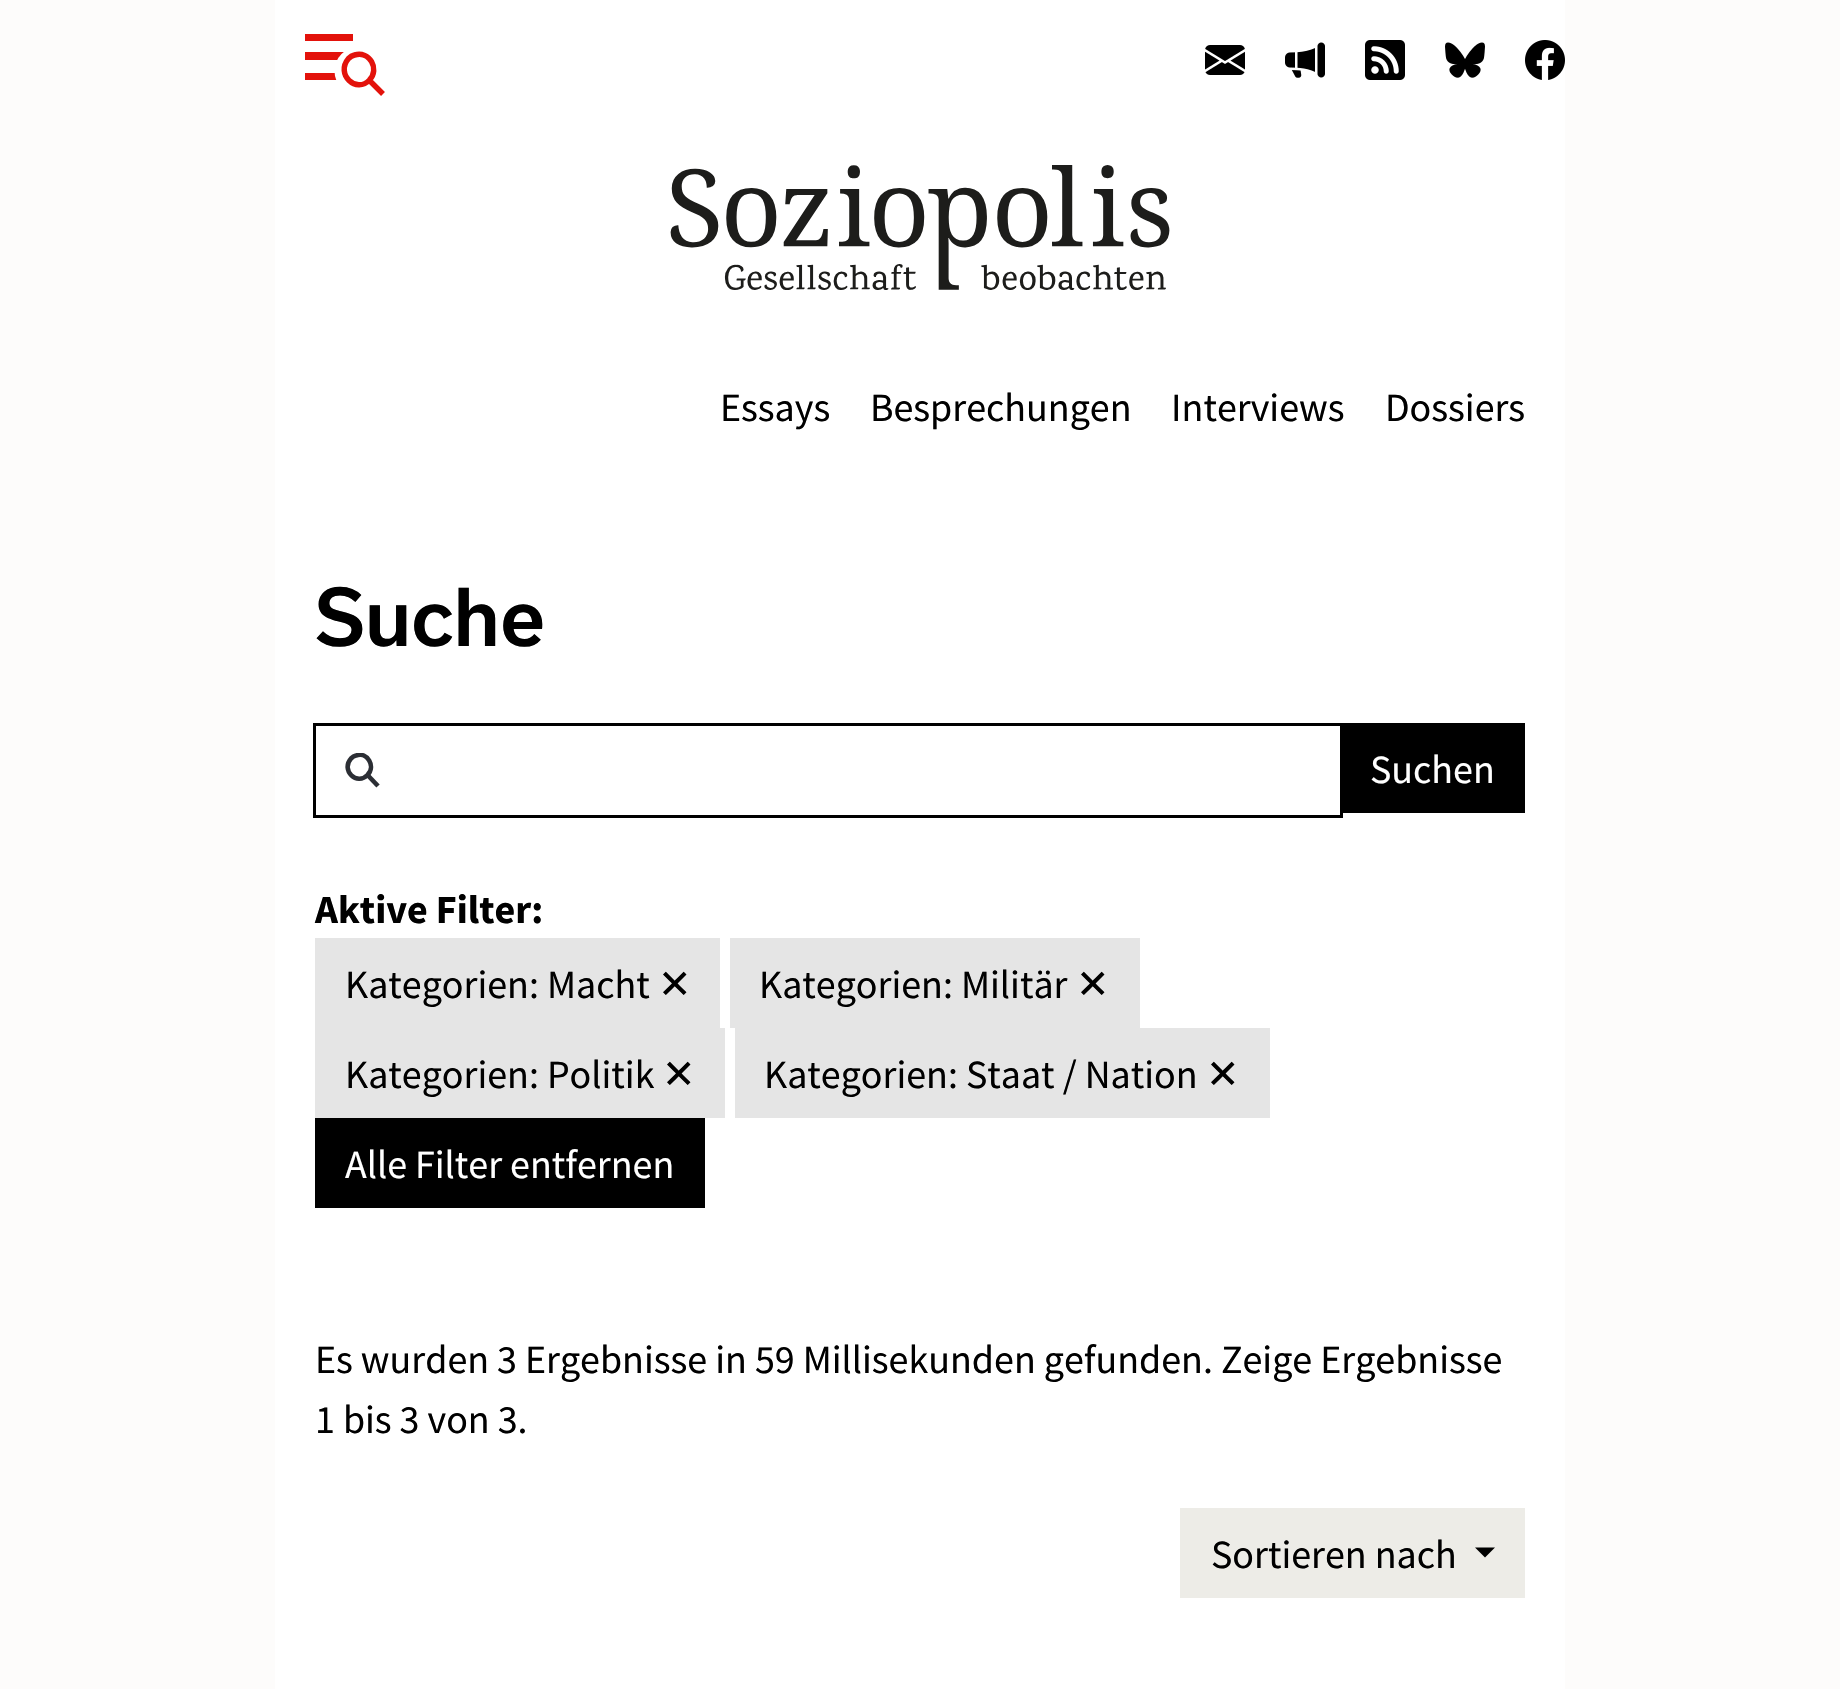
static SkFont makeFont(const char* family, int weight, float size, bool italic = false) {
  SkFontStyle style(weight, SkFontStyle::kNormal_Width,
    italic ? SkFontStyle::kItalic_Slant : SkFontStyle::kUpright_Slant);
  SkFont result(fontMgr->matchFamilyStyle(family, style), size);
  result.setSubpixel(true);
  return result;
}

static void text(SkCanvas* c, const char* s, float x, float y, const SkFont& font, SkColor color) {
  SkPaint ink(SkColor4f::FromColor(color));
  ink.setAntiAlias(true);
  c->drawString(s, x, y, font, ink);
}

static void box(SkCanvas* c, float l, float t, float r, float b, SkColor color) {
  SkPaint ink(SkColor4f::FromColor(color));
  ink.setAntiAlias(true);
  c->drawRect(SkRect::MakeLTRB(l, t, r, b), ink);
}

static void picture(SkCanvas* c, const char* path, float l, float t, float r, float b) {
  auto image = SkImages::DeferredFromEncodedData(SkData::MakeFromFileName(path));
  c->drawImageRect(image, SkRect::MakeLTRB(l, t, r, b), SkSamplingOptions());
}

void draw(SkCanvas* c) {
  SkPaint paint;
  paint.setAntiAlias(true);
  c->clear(0xfffdfcfb);
  box(c, 275, 0, 1565, 1689, 0xffffffff);
  box(c, 305, 34, 353, 41, 0xffe3120b);
  box(c, 305, 52, 344, 60, 0xffe3120b);
  box(c, 305, 73, 337, 80, 0xffe3120b);
  paint.setColor(0xffffffff);
  c->drawCircle(358.5f, 71, 24, paint);
  paint.setStyle(SkPaint::kStroke_Style);
  paint.setStrokeWidth(5.5f);
  paint.setColor(0xffe3120b);
  c->drawPath(SkPathBuilder().moveTo(369.5f, 80).cubicTo(380, 69, 369.5f, 50.5f, 354.5f, 55).cubicTo(352.5f, 55.5f, 350, 57, 348.5f, 58.5f).cubicTo(335, 74.5f, 356.5f, 94, 369.5f, 80).close().moveTo(370, 81).lineTo(383, 94).detach(), paint);
  picture(c, "img_01.png", 1205, 45, 1245, 75);
  picture(c, "img_02.png", 1285, 42, 1325, 78);
  picture(c, "img_03.png", 1365, 40, 1405, 80);
  picture(c, "img_04.png", 1445, 42, 1485, 78);
  picture(c, "img_05.png", 1525, 40, 1565, 80);
  picture(c, "img_06.png", 670, 165, 1170, 290);
  SkFont face1 = makeFont("Source Sans Pro", 400, 40);
  text(c, "Essays", 720, 421, face1, 0xff000000);
  text(c, "Besprechungen", 870, 421, face1, 0xff000000);
  text(c, "Interviews", 1171, 421, face1, 0xff000000);
  text(c, "Dossiers", 1385, 421, face1, 0xff000000);
  SkFont face2 = makeFont("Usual", 500, 76);
  text(c, "Suche", 315, 646, face2, 0xff000000);
  paint.setStrokeWidth(3);
  paint.setColor(0xff000000);
  c->drawRect(SkRect::MakeLTRB(314.5f, 724.5f, 1341.5f, 816.5f), paint);
  c->save();
  c->clipRect(SkRect::MakeLTRB(345, 753, 380, 788));
  paint.setStrokeWidth(4.6f);
  paint.setColor(0xff2b2e34);
  c->drawPath(SkPathBuilder().moveTo(367.5f, 775).cubicTo(376, 766.5f, 367.5f, 751.5f, 356, 755.5f).cubicTo(354, 756, 352.5f, 757, 351, 758.5f).cubicTo(340.5f, 770.5f, 357, 786, 367.5f, 775).close().detach(), paint);
  c->restore();
  c->drawPath(SkPathBuilder().moveTo(368, 775.5f).lineTo(378, 786).detach(), paint);
  box(c, 1343, 723, 1525, 813, 0xff000000);
  text(c, "Suchen", 1370, 783, face1, 0xffffffff);
  SkFont face3 = makeFont("Source Sans Pro", 700, 40);
  text(c, "Aktive Filter:", 315, 923, face3, 0xff000000);
  box(c, 315, 938, 720, 1028, 0xffe5e5e5);
  text(c, "Kategorien: Macht", 345, 998, face1, 0xff000000);
  SkFont face4 = makeFont("DejaVu Sans", 400, 40);
  text(c, "✕", 658, 998, face4, 0xff000000);
  box(c, 730, 938, 1140, 1028, 0xffe5e5e5);
  text(c, "Kategorien: Militär", 759, 998, face1, 0xff000000);
  text(c, "✕", 1076, 998, face4, 0xff000000);
  box(c, 315, 1028, 725, 1118, 0xffe5e5e5);
  text(c, "Kategorien: Politik", 345, 1088, face1, 0xff000000);
  text(c, "✕", 662, 1088, face4, 0xff000000);
  box(c, 735, 1028, 1270, 1118, 0xffe5e5e5);
  text(c, "Kategorien: Staat / Nation", 764, 1088, face1, 0xff000000);
  text(c, "✕", 1206, 1088, face4, 0xff000000);
  box(c, 315, 1118, 705, 1208, 0xff000000);
  text(c, "Alle Filter entfernen", 345, 1178, face1, 0xffffffff);
  text(c, "Es wurden 3 Ergebnisse in 59 Millisekunden gefunden. Zeige Ergebnisse", 315, 1373, face1, 0xff000000);
  text(c, "1 bis 3 von 3.", 315, 1433, face1, 0xff000000);
  box(c, 1180, 1508, 1525, 1598, 0xffedece7);
  text(c, "Sortieren nach", 1211, 1568, face1, 0xff000000);
  paint.setStyle(SkPaint::kFill_Style);
  paint.setColor(0xff000000);
  c->drawPath(SkPathBuilder().moveTo(1475, 1547.5f).lineTo(1495, 1547.5f).lineTo(1485, 1557.5f).close().detach(), paint);
}
